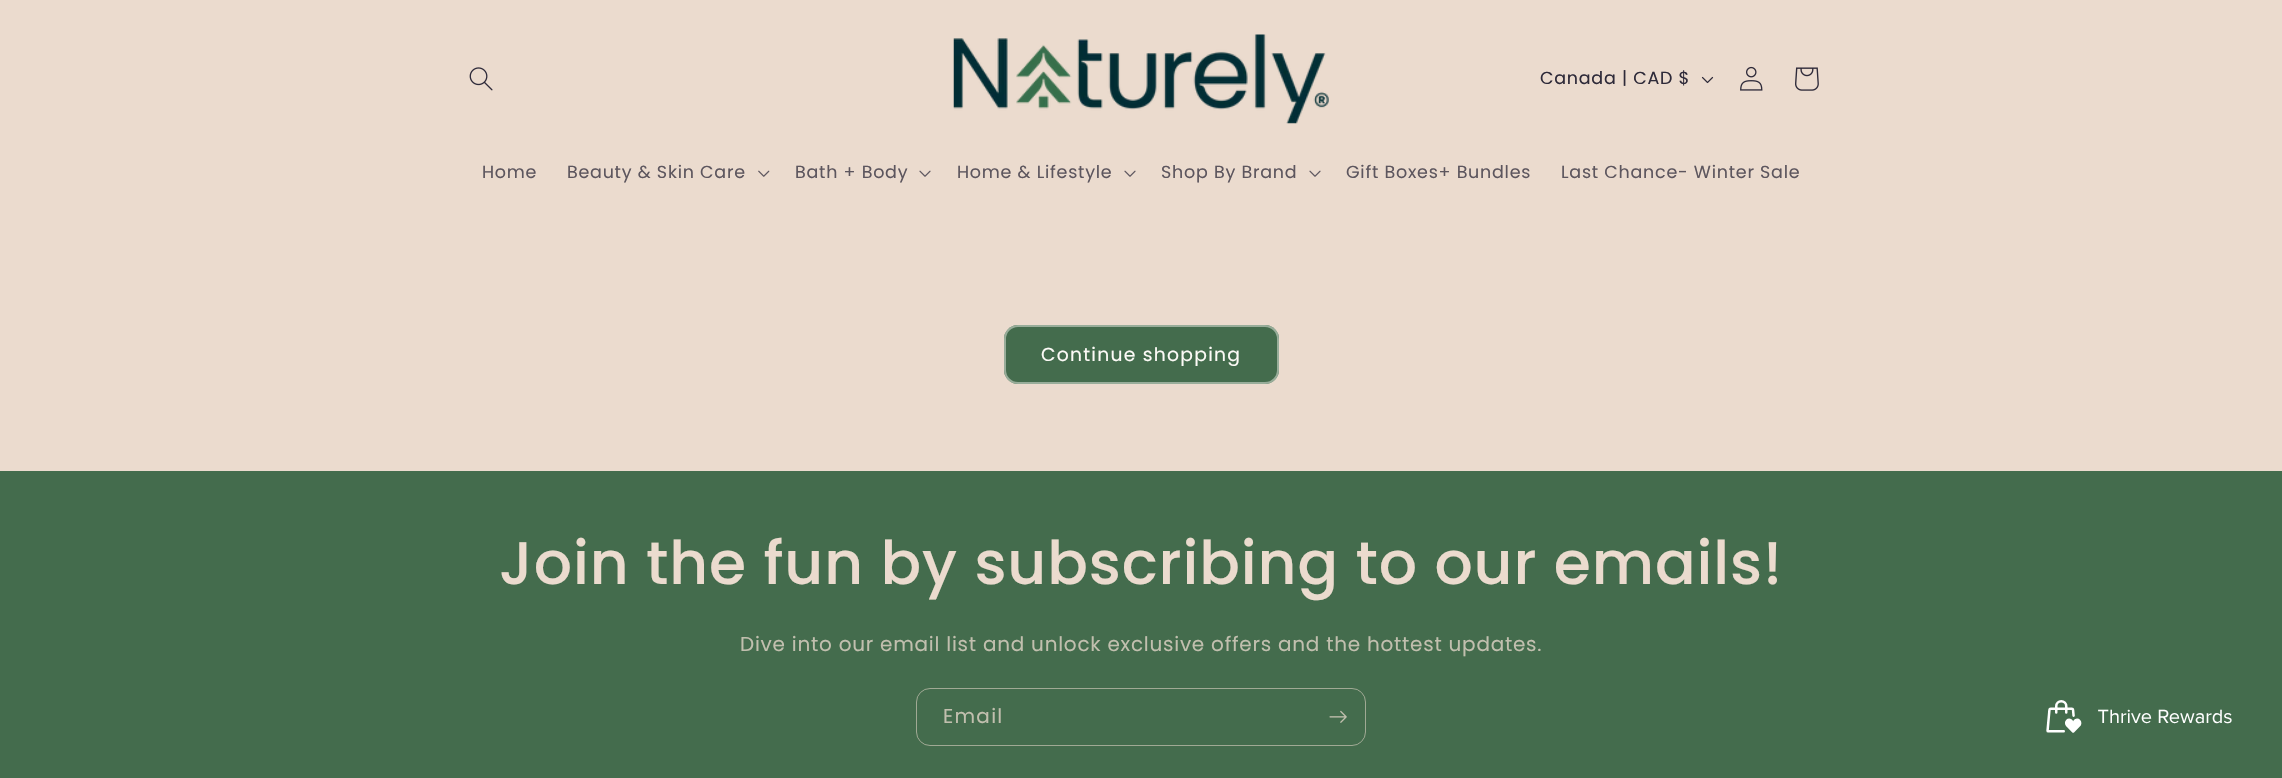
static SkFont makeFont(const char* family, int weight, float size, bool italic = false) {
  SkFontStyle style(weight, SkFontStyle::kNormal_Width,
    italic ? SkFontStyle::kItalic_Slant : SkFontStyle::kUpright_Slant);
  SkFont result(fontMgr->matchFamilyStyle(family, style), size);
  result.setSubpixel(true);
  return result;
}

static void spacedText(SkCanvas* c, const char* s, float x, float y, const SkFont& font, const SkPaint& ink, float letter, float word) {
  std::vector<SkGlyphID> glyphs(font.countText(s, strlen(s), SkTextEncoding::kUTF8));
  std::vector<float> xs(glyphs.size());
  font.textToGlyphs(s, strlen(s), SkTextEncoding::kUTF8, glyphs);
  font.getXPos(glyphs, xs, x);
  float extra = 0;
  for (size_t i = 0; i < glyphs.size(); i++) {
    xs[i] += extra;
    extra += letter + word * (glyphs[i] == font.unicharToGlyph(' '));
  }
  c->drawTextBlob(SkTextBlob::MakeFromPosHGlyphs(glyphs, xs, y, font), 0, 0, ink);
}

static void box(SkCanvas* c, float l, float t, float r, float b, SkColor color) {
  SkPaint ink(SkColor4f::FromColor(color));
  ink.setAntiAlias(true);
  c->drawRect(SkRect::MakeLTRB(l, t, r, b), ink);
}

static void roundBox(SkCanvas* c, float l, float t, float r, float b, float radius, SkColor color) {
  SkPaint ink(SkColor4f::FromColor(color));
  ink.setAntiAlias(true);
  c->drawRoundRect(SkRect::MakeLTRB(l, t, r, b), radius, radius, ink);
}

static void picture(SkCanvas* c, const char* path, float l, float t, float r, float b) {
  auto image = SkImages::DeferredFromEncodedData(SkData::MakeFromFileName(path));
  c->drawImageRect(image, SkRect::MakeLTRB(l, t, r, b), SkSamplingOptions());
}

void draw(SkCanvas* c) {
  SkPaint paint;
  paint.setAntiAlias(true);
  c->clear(0xffebdbce);
  picture(c, "img_01.png", 469, 67, 493, 91);
  picture(c, "img_02.png", 953, 34, 1329, 124);
  SkFont face1 = makeFont("Poppins", 400, 17.5f);
  paint.setColor(0xff2e2a39);
  spacedText(c, "Canada | CAD $", 1540, 84, face1, paint, 0.75f, 0);
  picture(c, "img_03.png", 1701, 76, 1714, 84);
  picture(c, "img_04.png", 1740, 66, 1763, 91);
  picture(c, "img_05.png", 1795, 67, 1819, 91);
  paint.setColor(0xff5d565e);
  spacedText(c, "Home", 482, 178, face1, paint, 0.75f, 0);
  spacedText(c, "Beauty & Skin Care", 567, 178, face1, paint, 0.75f, 0);
  picture(c, "img_06.png", 758, 170, 770, 177);
  spacedText(c, "Bath + Body", 795, 178, face1, paint, 0.75f, 0);
  picture(c, "img_07.png", 919, 170, 931, 177);
  spacedText(c, "Home & Lifestyle", 957, 178, face1, paint, 0.75f, 0);
  picture(c, "img_07.png", 1124, 170, 1136, 177);
  spacedText(c, "Shop By Brand", 1161, 178, face1, paint, 0.75f, 0);
  picture(c, "img_07.png", 1309, 170, 1321, 177);
  spacedText(c, "Gift Boxes+ Bundles", 1346, 178, face1, paint, 0.75f, 0);
  spacedText(c, "Last Chance- Winter Sale", 1561, 178, face1, paint, 0.75f, 0);
  roundBox(c, 1004, 325, 1279, 384, 14, 0xff446c4d);
  paint.setStyle(SkPaint::kStroke_Style);
  paint.setStrokeWidth(1);
  paint.setColor(0xff446c4d);
  c->drawRoundRect(SkRect::MakeLTRB(1004.5f, 325.5f, 1278.5f, 383.5f), 13.5f, 13.5f, paint);
  paint.setStrokeWidth(2);
  paint.setColor(0x73fdfbf7);
  c->drawRoundRect(SkRect::MakeLTRB(1005, 326, 1278, 383), 13, 13, paint);
  SkFont face2 = makeFont("Poppins", 400, 18.75f);
  paint.setStyle(SkPaint::kFill_Style);
  paint.setColor(0xfffdfbf7);
  spacedText(c, "Continue shopping", 1041, 361, face2, paint, 1.25f, 0);
  box(c, 0, 471, 2282, 778, 0xff446c4d);
  SkFont face3 = makeFont("Poppins", 500, 60);
  paint.setColor(0xffebdbce);
  spacedText(c, "Join the fun by subscribing to our emails!", 499, 584, face3, paint, 0.9f, 0);
  SkFont face4 = makeFont("Poppins", 400, 20);
  paint.setColor(0xffc1bfae);
  spacedText(c, "Dive into our email list and unlock exclusive offers and the hottest updates.", 740, 651, face4, paint, 0.75f, 0);
  paint.setStyle(SkPaint::kStroke_Style);
  paint.setStrokeWidth(1);
  paint.setColor(0xffa0a994);
  c->drawRoundRect(SkRect::MakeLTRB(916.5f, 688.5f, 1365.5f, 745.5f), 13.5f, 13.5f, paint);
  paint.setStyle(SkPaint::kFill_Style);
  paint.setColor(0xffc1bfae);
  spacedText(c, "Email", 943, 723, face4, paint, 1.25f, 0);
  picture(c, "img_08.png", 1329, 710, 1347, 723);
  picture(c, "img_09.png", 2046, 700, 2232, 733);
}
